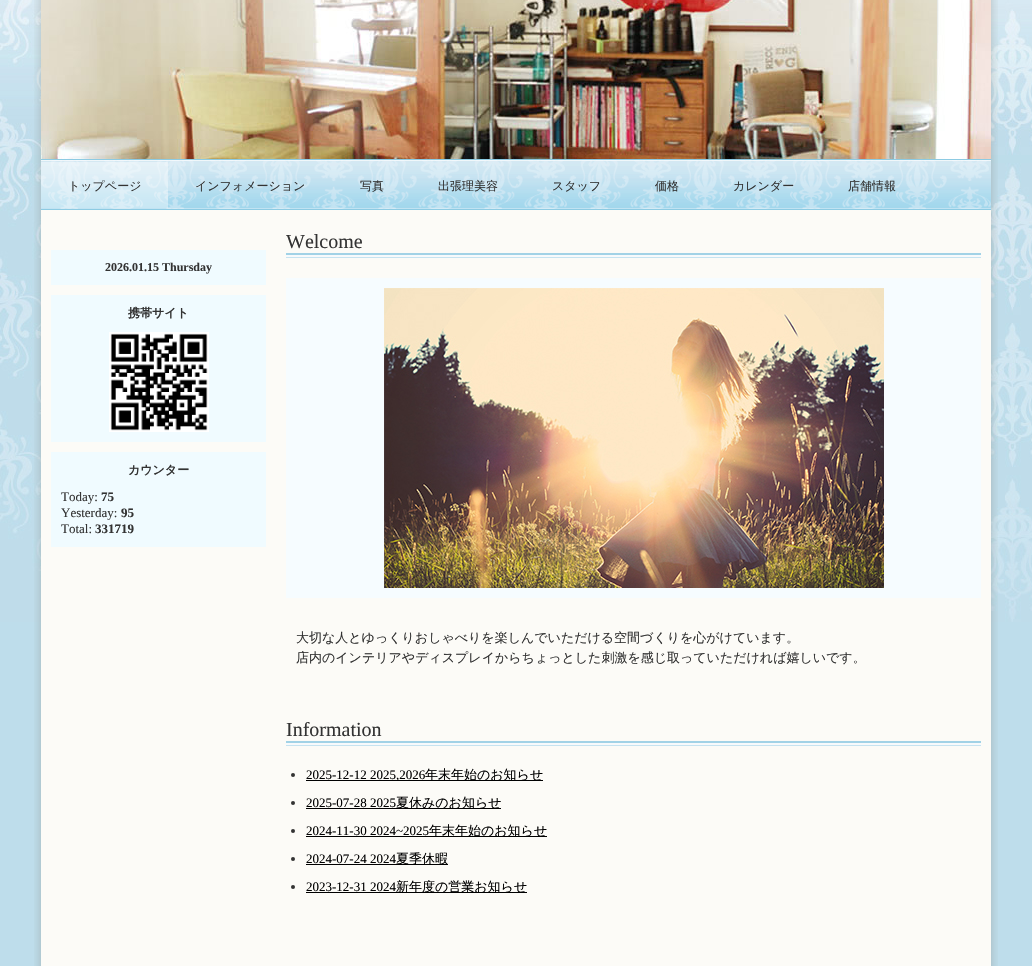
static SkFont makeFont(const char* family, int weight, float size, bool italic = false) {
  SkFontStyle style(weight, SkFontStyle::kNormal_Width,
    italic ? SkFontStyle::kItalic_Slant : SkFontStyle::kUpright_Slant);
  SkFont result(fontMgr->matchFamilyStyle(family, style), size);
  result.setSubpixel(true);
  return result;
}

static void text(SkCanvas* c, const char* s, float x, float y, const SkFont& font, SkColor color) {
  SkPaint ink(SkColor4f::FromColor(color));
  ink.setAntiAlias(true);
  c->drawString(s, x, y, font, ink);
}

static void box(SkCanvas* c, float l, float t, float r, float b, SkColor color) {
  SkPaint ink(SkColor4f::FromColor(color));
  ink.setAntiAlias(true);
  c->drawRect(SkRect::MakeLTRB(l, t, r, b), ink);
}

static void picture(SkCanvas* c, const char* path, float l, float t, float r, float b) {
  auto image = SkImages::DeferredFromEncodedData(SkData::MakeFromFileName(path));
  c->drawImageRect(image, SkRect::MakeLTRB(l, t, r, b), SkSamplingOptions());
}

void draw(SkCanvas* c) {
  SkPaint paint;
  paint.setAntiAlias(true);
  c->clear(0xffbeddeb);
  picture(c, "img_01.png", 0, 0, 1032, 622);
  picture(c, "img_02.png", 34, 0, 998, 966);
  picture(c, "img_03.png", 41, 0, 991, 159);
  picture(c, "img_04.png", 41, 159, 991, 210);
  box(c, 41, 162, 168, 208, 0x66ffffff);
  SkFont face1 = makeFont("WenQuanYi Zen Hei", 500, 12);
  text(c, "トップページ", 68, 190, face1, 0xff333333);
  text(c, "インフォメーション", 195, 190, face1, 0xff333333);
  text(c, "写真", 360, 190, face1, 0xff333333);
  text(c, "出張理美容", 438, 190, face1, 0xff333333);
  text(c, "スタッフ", 552, 190, face1, 0xff333333);
  text(c, "価格", 655, 190, face1, 0xff333333);
  text(c, "カレンダー", 733, 190, face1, 0xff333333);
  text(c, "店舗情報", 848, 190, face1, 0xff333333);
  box(c, 51, 250, 266, 285, 0xfff0fbff);
  SkFont face2 = makeFont("Liberation Serif", 700, 12);
  text(c, "2026.01.15 Thursday", 105, 271, face2, 0xff333333);
  box(c, 51, 295, 266, 442, 0xfff0fbff);
  SkFont face3 = makeFont("WenQuanYi Zen Hei", 700, 12);
  text(c, "携帯サイト", 128, 317, face3, 0xff333333);
  picture(c, "img_05.png", 109, 332, 209, 432);
  box(c, 51, 452, 266, 547, 0xfff0fbff);
  text(c, "カウンター", 128, 474, face3, 0xff333333);
  SkFont face4 = makeFont("Liberation Serif", 400, 13);
  text(c, "Today:", 61, 501, face4, 0xff333333);
  SkFont face5 = makeFont("Liberation Serif", 700, 13);
  text(c, "75", 101, 501, face5, 0xff333333);
  text(c, "Yesterday:", 61, 517, face4, 0xff333333);
  text(c, "95", 121, 517, face5, 0xff333333);
  text(c, "Total:", 61, 533, face4, 0xff333333);
  text(c, "331719", 95, 533, face5, 0xff333333);
  picture(c, "img_06.png", 286, 253, 981, 258);
  SkFont face6 = makeFont("Liberation Serif", 400, 20);
  text(c, "Welcome", 286, 248, face6, 0xff333333);
  box(c, 286, 278, 981, 598, 0xfff6fcff);
  picture(c, "img_07.png", 384, 288, 884, 588);
  SkFont face7 = makeFont("WenQuanYi Zen Hei", 500, 13);
  text(c, "大切な人とゆっくりおしゃべりを楽しんでいただける空間づくりを心がけています。", 296, 642, face7, 0xff333333);
  text(c, "店内のインテリアやディスプレイからちょっとした刺激を感じ取っていただければ嬉しいです。", 296, 662, face7, 0xff333333);
  picture(c, "img_06.png", 286, 741, 981, 746);
  text(c, "Information", 286, 736, face6, 0xff333333);
  paint.setColor(0xff333333);
  c->drawCircle(293, 775, 2, paint);
  box(c, 306, 780, 543, 781, 0xff000000);
  text(c, "2025-12-12 2025,2026", 306, 779, face4, 0xff000000);
  text(c, "年末年始のお知らせ", 425, 779, face7, 0xff000000);
  c->drawCircle(293, 803, 2, paint);
  text(c, "2025-07-28 2025", 306, 807, face4, 0xff000000);
  box(c, 306, 808, 501, 809, 0xff000000);
  text(c, "夏休みのお知らせ", 396, 807, face7, 0xff000000);
  c->drawCircle(293, 831, 2, paint);
  text(c, "2024-11-30 2024~2025", 306, 835, face4, 0xff000000);
  box(c, 306, 836, 547, 837, 0xff000000);
  text(c, "年末年始のお知らせ", 429, 835, face7, 0xff000000);
  c->drawCircle(293, 859, 2, paint);
  text(c, "2024-07-24 2024", 306, 863, face4, 0xff000000);
  box(c, 306, 864, 448, 865, 0xff000000);
  text(c, "夏季休暇", 396, 863, face7, 0xff000000);
  c->drawCircle(293, 887, 2, paint);
  text(c, "2023-12-31 2024", 306, 891, face4, 0xff000000);
  box(c, 306, 892, 527, 893, 0xff000000);
  text(c, "新年度の営業お知らせ", 396, 891, face7, 0xff000000);
}
